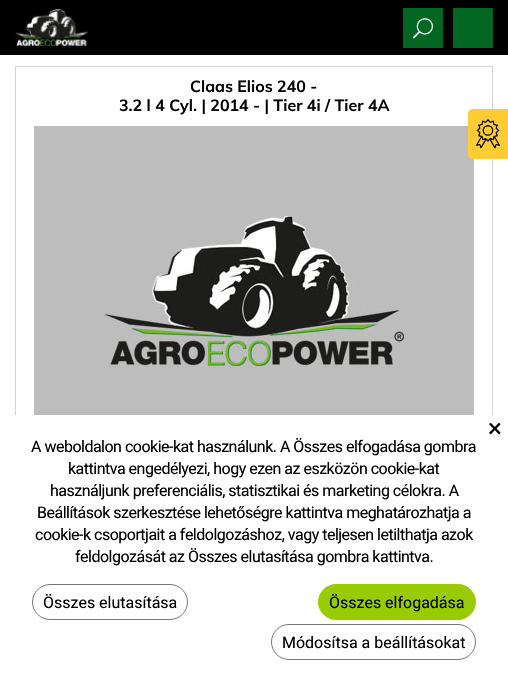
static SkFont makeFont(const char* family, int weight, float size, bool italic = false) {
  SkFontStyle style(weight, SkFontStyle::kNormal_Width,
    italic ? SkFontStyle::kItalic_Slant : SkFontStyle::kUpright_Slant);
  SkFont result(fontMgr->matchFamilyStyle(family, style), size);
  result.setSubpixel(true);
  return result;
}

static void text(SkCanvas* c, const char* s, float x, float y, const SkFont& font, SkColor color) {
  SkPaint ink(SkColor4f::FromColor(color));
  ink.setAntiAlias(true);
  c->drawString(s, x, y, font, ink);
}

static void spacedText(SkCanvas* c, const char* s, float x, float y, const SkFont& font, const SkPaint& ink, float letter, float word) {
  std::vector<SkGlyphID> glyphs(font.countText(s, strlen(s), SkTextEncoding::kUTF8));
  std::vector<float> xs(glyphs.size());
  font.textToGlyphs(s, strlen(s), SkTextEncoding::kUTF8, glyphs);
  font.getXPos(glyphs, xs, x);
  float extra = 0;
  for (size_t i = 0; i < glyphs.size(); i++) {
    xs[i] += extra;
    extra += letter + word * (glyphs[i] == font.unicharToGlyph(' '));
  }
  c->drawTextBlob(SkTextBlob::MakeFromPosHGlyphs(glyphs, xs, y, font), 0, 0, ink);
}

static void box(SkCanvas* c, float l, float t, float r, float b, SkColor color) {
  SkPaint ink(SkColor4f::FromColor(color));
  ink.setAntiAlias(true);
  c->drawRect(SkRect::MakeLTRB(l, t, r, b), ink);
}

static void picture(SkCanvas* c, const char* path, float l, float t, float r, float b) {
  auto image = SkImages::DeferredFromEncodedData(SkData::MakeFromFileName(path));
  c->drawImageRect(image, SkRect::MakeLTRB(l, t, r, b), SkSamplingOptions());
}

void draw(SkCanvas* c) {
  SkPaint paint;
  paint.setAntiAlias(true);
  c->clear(0xffffffff);
  box(c, 0, 0, 508, 55, 0xff000000);
  picture(c, "img_01.png", 15, 9, 88, 46);
  box(c, 403, 8, 443, 48, 0xff006622);
  picture(c, "img_02.png", 413, 18, 433, 39);
  box(c, 453, 8, 493, 48, 0xff006622);
  paint.setStyle(SkPaint::kStroke_Style);
  paint.setStrokeWidth(1);
  paint.setColor(0xffd5d5d5);
  c->drawRect(SkRect::MakeLTRB(15.5f, 66.5f, 492.5f, 655.5f), paint);
  SkFont face1 = makeFont("Muli", 700, 16);
  text(c, "Claas Elios 240 -", 190, 92, face1, 0xff000000);
  text(c, "3.2 l 4 Cyl. | 2014 - | Tier 4i / Tier 4A", 119, 111, face1, 0xff000000);
  picture(c, "img_03.png", 34, 126, 474, 415);
  paint.setStyle(SkPaint::kFill_Style);
  paint.setColor(0xffffcc33);
  c->drawPath(SkPathBuilder().moveTo(473, 109).lineTo(508, 109).lineTo(508, 159).lineTo(473, 159).cubicTo(470, 159, 468, 157, 468, 154).lineTo(468, 114).cubicTo(468, 111, 470, 109, 473, 109).close().detach(), paint);
  picture(c, "img_04.png", 476, 119, 500, 149);
  box(c, 15, 415, 493, 656, 0xffffffff);
  SkFont face2 = makeFont("Roboto", 400, 26);
  text(c, "×", 488, 437, face2, 0xff000000);
  SkFont face3 = makeFont("Roboto", 400, 16);
  paint.setColor(0xff000000);
  spacedText(c, "A weboldalon cookie-kat használunk. A Összes elfogadása gombra", 31, 452, face3, paint, -0.5f, 0);
  spacedText(c, "kattintva engedélyezi, hogy ezen az eszközön cookie-kat", 68, 474, face3, paint, -0.5f, 0);
  spacedText(c, "használjunk preferenciális, statisztikai és marketing célokra. A", 50, 496, face3, paint, -0.5f, 0);
  spacedText(c, "Beállítások szerkesztése lehetőségre kattintva meghatározhatja a", 37, 518, face3, paint, -0.5f, 0);
  spacedText(c, "cookie-k csoportjait a feldolgozáshoz, vagy teljesen letilthatja azok", 35, 540, face3, paint, -0.5f, 0);
  spacedText(c, "feldolgozását az Összes elutasítása gombra kattintva.", 75, 562, face3, paint, -0.5f, 0);
  paint.setStyle(SkPaint::kStroke_Style);
  paint.setColor(0xff767676);
  c->drawRoundRect(SkRect::MakeLTRB(32.5f, 584.5f, 187.5f, 619.5f), 17.5f, 17.5f, paint);
  text(c, "Összes elutasítása", 43, 608, face3, 0xff000000);
  paint.setStyle(SkPaint::kFill_Style);
  paint.setColor(0xff99cc00);
  c->drawRoundRect(SkRect::MakeLTRB(318.5f, 584.5f, 475.5f, 619.5f), 17.5f, 17.5f, paint);
  paint.setStyle(SkPaint::kStroke_Style);
  c->drawRoundRect(SkRect::MakeLTRB(318.5f, 584.5f, 475.5f, 619.5f), 17.5f, 17.5f, paint);
  text(c, "Összes elfogadása", 329, 608, face3, 0xff000000);
  paint.setColor(0xff767676);
  c->drawRoundRect(SkRect::MakeLTRB(271.5f, 624.5f, 475.5f, 659.5f), 17.5f, 17.5f, paint);
  text(c, "Módosítsa a beállításokat", 282, 648, face3, 0xff000000);
}
